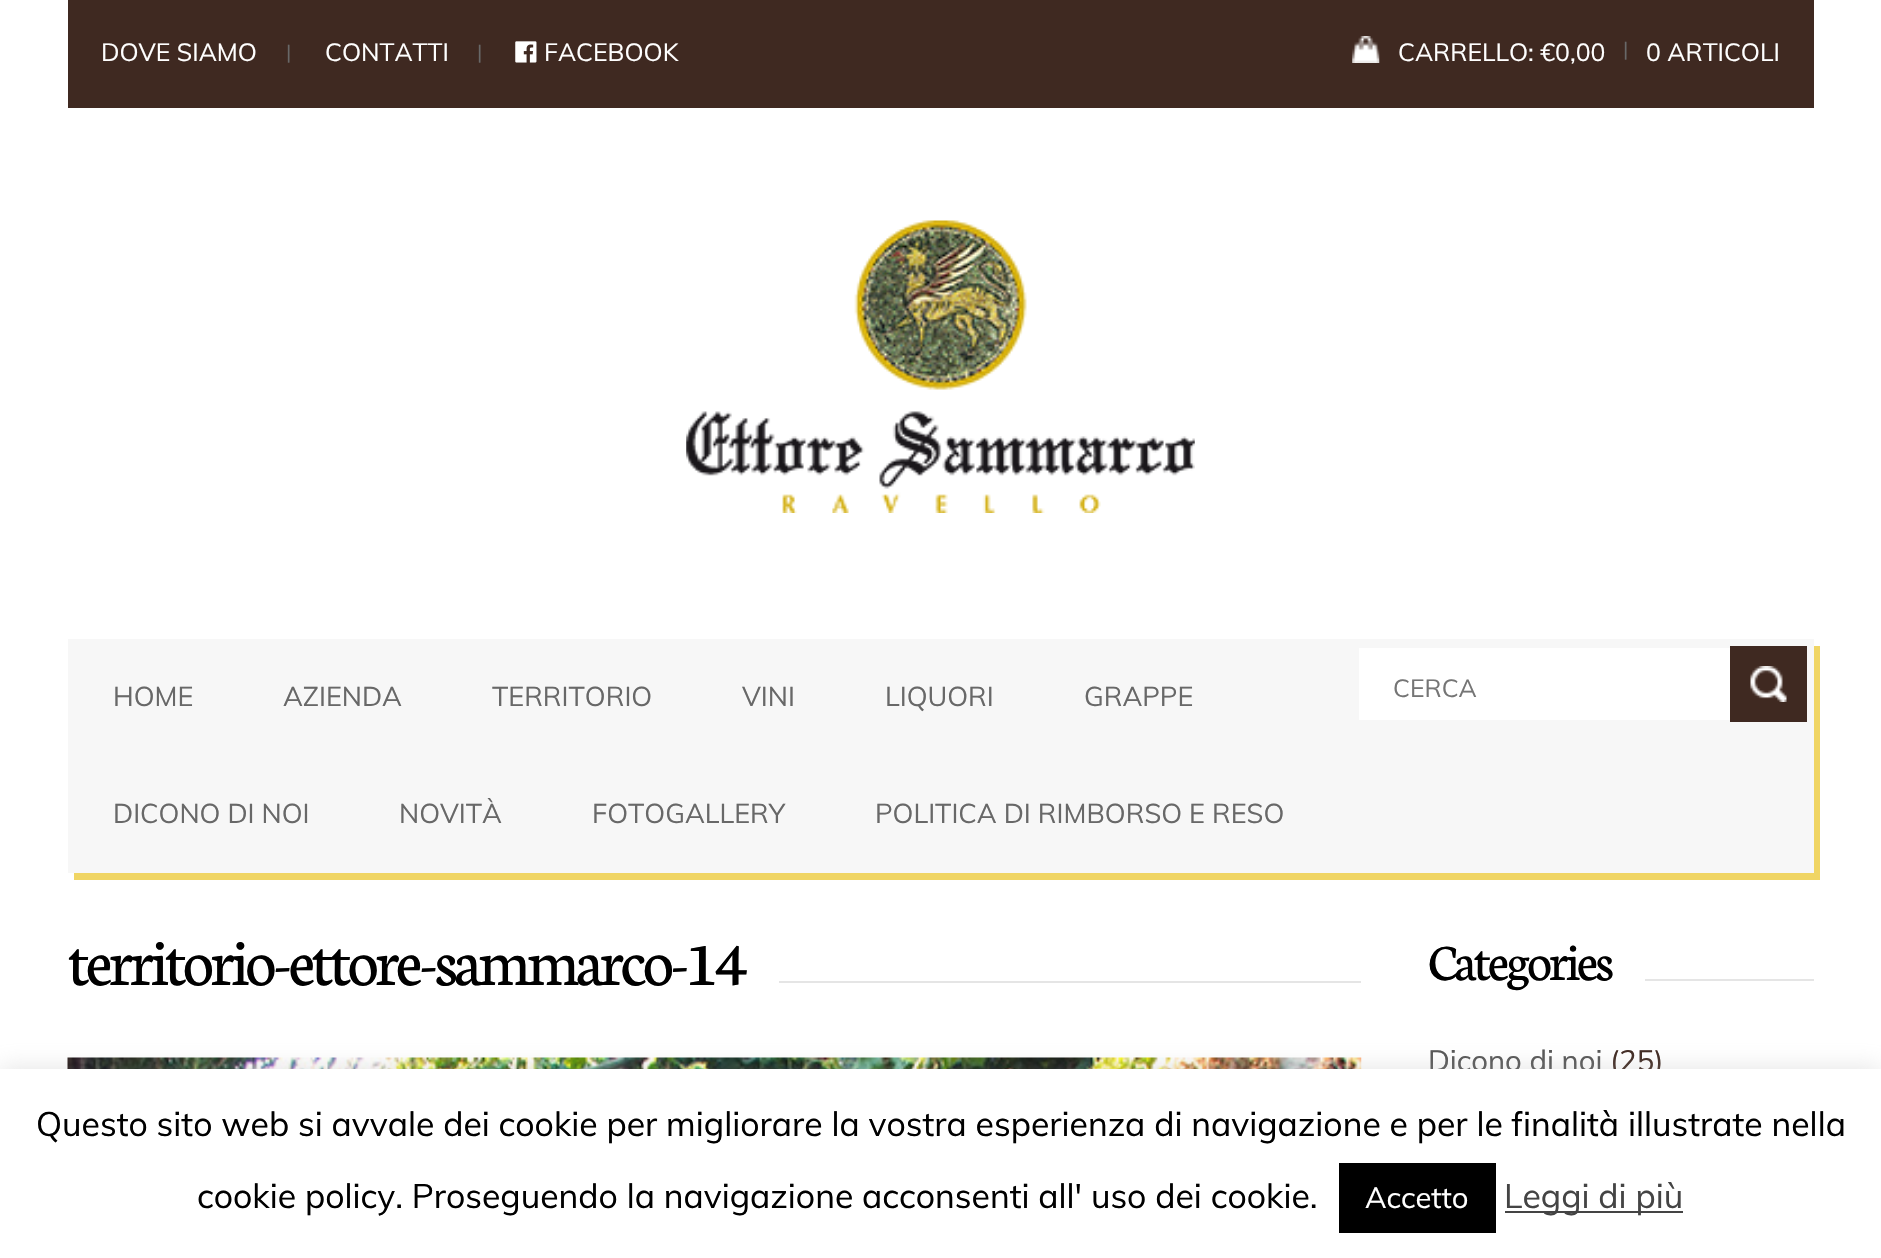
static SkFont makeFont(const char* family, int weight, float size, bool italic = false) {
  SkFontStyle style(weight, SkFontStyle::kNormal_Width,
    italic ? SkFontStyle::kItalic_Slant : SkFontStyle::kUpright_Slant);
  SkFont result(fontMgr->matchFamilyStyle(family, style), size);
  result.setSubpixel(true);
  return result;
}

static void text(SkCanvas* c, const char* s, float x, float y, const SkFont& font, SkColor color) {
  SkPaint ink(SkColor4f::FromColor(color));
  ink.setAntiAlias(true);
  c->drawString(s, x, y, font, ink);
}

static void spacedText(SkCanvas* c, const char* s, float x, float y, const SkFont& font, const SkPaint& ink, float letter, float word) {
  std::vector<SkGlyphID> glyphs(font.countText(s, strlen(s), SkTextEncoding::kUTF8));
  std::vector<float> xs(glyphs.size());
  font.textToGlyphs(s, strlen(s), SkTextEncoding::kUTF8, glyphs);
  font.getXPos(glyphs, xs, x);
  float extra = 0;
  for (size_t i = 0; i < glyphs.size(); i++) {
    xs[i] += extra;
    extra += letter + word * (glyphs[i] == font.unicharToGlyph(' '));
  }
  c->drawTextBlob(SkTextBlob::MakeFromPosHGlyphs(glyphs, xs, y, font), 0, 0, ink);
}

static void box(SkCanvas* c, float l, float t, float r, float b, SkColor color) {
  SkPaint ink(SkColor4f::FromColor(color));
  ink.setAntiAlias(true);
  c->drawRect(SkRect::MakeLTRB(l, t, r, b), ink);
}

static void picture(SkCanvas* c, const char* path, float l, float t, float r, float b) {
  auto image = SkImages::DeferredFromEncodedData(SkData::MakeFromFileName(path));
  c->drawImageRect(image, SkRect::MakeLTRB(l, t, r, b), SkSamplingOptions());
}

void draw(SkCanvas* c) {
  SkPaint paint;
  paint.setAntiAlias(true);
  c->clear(0xffffffff);
  box(c, 68, 0, 1814, 108, 0xff3f2921);
  SkFont face1 = makeFont("Muli", 400, 24.75f);
  text(c, "DOVE SIAMO", 101, 61, face1, 0xffffffff);
  SkFont face2 = makeFont("Muli", 400, 20);
  text(c, "|", 286, 59, face2, 0xff686868);
  text(c, "CONTATTI", 325, 61, face1, 0xffffffff);
  text(c, "|", 477, 59, face2, 0xff686868);
  picture(c, "img_01.png", 515, 41, 537, 63);
  text(c, "FACEBOOK", 544, 61, face1, 0xffffffff);
  picture(c, "img_02.png", 1352, 36, 1380, 63);
  text(c, "CARRELLO: €0,00", 1398, 61, face1, 0xffffffff);
  text(c, "|", 1623, 56, face2, 0xff686868);
  text(c, "0 ARTICOLI", 1646, 61, face1, 0xffffffff);
  picture(c, "img_03.png", 686, 220, 1195, 513);
  paint.setColor(0xfff0d564);
  c->drawPath(SkPathBuilder().moveTo(74, 873).lineTo(74, 880).lineTo(1820, 880).lineTo(1820, 646).lineTo(1814, 646).lineTo(1814, 873).close().detach(), paint);
  box(c, 68, 639, 1814, 873, 0xfff7f7f7);
  SkFont face3 = makeFont("Muli", 400, 27);
  text(c, "HOME", 113, 706, face3, 0xff686868);
  text(c, "AZIENDA", 283, 706, face3, 0xff686868);
  text(c, "TERRITORIO", 492, 706, face3, 0xff686868);
  text(c, "VINI", 742, 706, face3, 0xff686868);
  text(c, "LIQUORI", 885, 706, face3, 0xff686868);
  text(c, "GRAPPE", 1084, 706, face3, 0xff686868);
  text(c, "DICONO DI NOI", 113, 823, face3, 0xff686868);
  text(c, "NOVITÀ", 399, 823, face3, 0xff686868);
  text(c, "FOTOGALLERY", 592, 823, face3, 0xff686868);
  text(c, "POLITICA DI RIMBORSO E RESO", 875, 823, face3, 0xff686868);
  box(c, 1359, 648, 1730, 720, 0xffffffff);
  text(c, "CERCA", 1393, 697, face1, 0xff757575);
  box(c, 1730, 646, 1807, 722, 0xff3f2921);
  picture(c, "img_04.png", 1750, 666, 1787, 702);
  SkFont face4 = makeFont("Neuton", 400, 67.5f);
  paint.setColor(0xff000000);
  spacedText(c, "territorio-ettore-sammarco-14", 68, 985, face4, paint, -3.4f, 0);
  box(c, 779, 981, 1361, 983, 0xffe5e5e5);
  picture(c, "img_05.png", 67, 1057, 1362, 1069);
  SkFont face5 = makeFont("Neuton", 400, 54);
  spacedText(c, "Categories", 1428, 980, face5, paint, -2.75f, 0);
  box(c, 1645, 979, 1814, 981, 0xffe5e5e5);
  SkFont face6 = makeFont("Muli", 400, 29.25f);
  text(c, "Dicono di noi", 1428, 1071, face6, 0xff565656);
  text(c, "(25)", 1610, 1071, face6, 0xff3f2921);
  paint.setColor(0x4dacabab);
  paint.setMaskFilter(SkMaskFilter::MakeBlur(kNormal_SkBlurStyle, 11));
  c->drawRect(SkRect::MakeLTRB(0, 1067, 1881, 1258), paint);
  paint.setMaskFilter(nullptr);
  box(c, 0, 1069, 1881, 1258, 0xffffffff);
  SkFont face7 = makeFont("Muli", 400, 33.75f);
  text(c, "Questo sito web si avvale dei cookie per migliorare la vostra esperienza di navigazione e per le finalità illustrate nella", 36, 1136, face7, 0xff000000);
  text(c, "cookie policy. Proseguendo la navigazione acconsenti all' uso dei cookie.", 197, 1208, face7, 0xff000000);
  box(c, 1339, 1163, 1496, 1233, 0xff000000);
  text(c, "Accetto", 1365, 1208, face6, 0xffffffff);
  box(c, 1505, 1211, 1683, 1213, 0xff444444);
  text(c, "Leggi di più", 1504, 1208, face7, 0xff444444);
}
